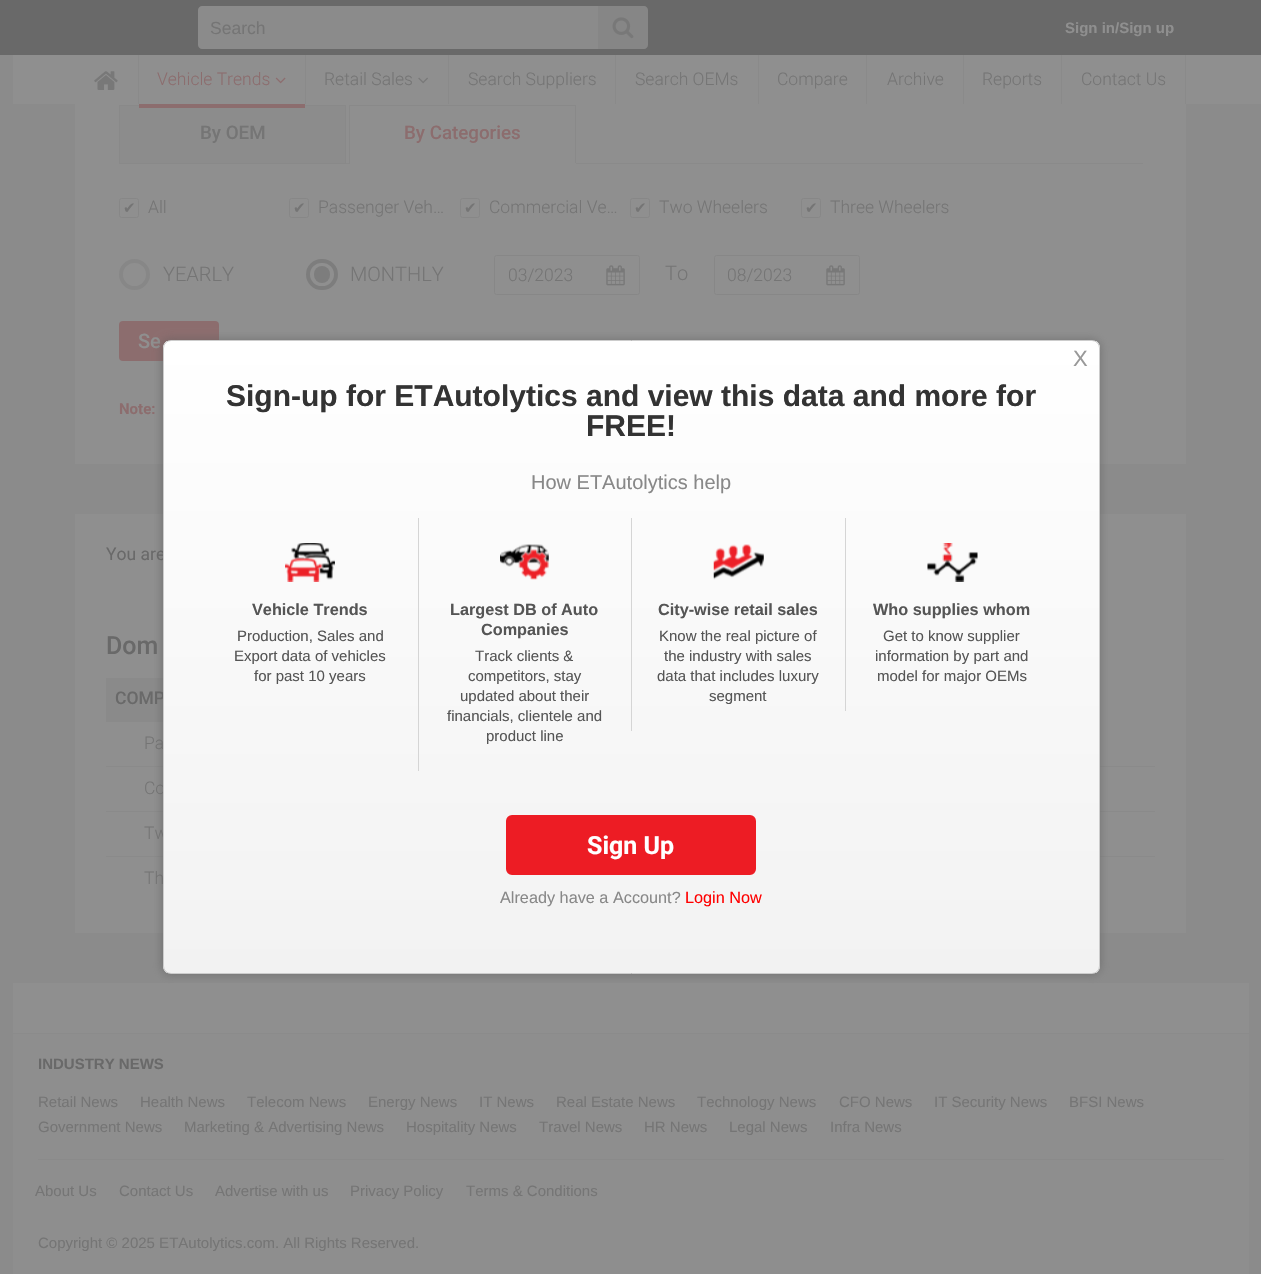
static SkFont makeFont(const char* family, int weight, float size, bool italic = false) {
  SkFontStyle style(weight, SkFontStyle::kNormal_Width,
    italic ? SkFontStyle::kItalic_Slant : SkFontStyle::kUpright_Slant);
  SkFont result(fontMgr->matchFamilyStyle(family, style), size);
  result.setSubpixel(true);
  return result;
}

static void text(SkCanvas* c, const char* s, float x, float y, const SkFont& font, SkColor color) {
  SkPaint ink(SkColor4f::FromColor(color));
  ink.setAntiAlias(true);
  c->drawString(s, x, y, font, ink);
}

static void box(SkCanvas* c, float l, float t, float r, float b, SkColor color) {
  SkPaint ink(SkColor4f::FromColor(color));
  ink.setAntiAlias(true);
  c->drawRect(SkRect::MakeLTRB(l, t, r, b), ink);
}

static void roundBox(SkCanvas* c, float l, float t, float r, float b, float radius, SkColor color) {
  SkPaint ink(SkColor4f::FromColor(color));
  ink.setAntiAlias(true);
  c->drawRoundRect(SkRect::MakeLTRB(l, t, r, b), radius, radius, ink);
}

static void picture(SkCanvas* c, const char* path, float l, float t, float r, float b) {
  auto image = SkImages::DeferredFromEncodedData(SkData::MakeFromFileName(path));
  c->drawImageRect(image, SkRect::MakeLTRB(l, t, r, b), SkSamplingOptions());
}

void draw(SkCanvas* c) {
  SkPaint paint;
  paint.setAntiAlias(true);
  c->clear(0xff8b8b8b);
  box(c, 13, 983, 1249, 1033, 0xff8f8f8f);
  box(c, 13, 55, 1261, 104, 0xff8f8f8f);
  box(c, 138, 54, 139, 104, 0xff8a8a8a);
  box(c, 305, 54, 306, 104, 0xff8a8a8a);
  box(c, 448, 54, 449, 104, 0xff8a8a8a);
  box(c, 615, 54, 616, 104, 0xff8a8a8a);
  box(c, 758, 54, 759, 104, 0xff8a8a8a);
  box(c, 866, 54, 867, 104, 0xff8a8a8a);
  box(c, 963, 54, 964, 104, 0xff8a8a8a);
  box(c, 1061, 54, 1062, 104, 0xff8a8a8a);
  box(c, 1185, 54, 1186, 104, 0xff8a8a8a);
  box(c, 0, 0, 1261, 55, 0xff696969);
  paint.setColor(0xff8b8b8b);
  c->drawPath(SkPathBuilder().moveTo(202, 6).lineTo(606, 6).lineTo(606, 49).lineTo(202, 49).cubicTo(200, 49, 198, 47, 198, 45).lineTo(198, 10).cubicTo(198, 8, 200, 6, 202, 6).close().detach(), paint);
  SkFont face1 = makeFont("Liberation Sans", 400, 17.5f);
  text(c, "Search", 210, 34, face1, 0xff757575);
  paint.setColor(0xff868686);
  c->drawPath(SkPathBuilder().moveTo(598, 6).lineTo(644, 6).cubicTo(646, 6, 648, 8, 648, 10).lineTo(648, 45).cubicTo(648, 47, 646, 49, 644, 49).lineTo(598, 49).close().detach(), paint);
  picture(c, "img_01.png", 612, 17, 634, 39);
  SkFont face2 = makeFont("Liberation Sans", 700, 15);
  text(c, "Sign in/Sign up", 1065, 33, face2, 0xff8f8f8f);
  picture(c, "img_02.png", 94, 71, 118, 90);
  SkFont face3 = makeFont("Roboto", 300, 17.5f);
  text(c, "Vehicle Trends", 157, 85, face3, 0xff8c6d6e);
  picture(c, "img_03.png", 275, 77, 286, 84);
  box(c, 75, 104, 1186, 464, 0xff8f8f8f);
  paint.setColor(0xff8c8c8c);
  c->drawRect(SkRect::MakeLTRB(119.5f, 105.5f, 345.5f, 163.5f), paint);
  paint.setStyle(SkPaint::kStroke_Style);
  paint.setStrokeWidth(1);
  paint.setColor(0xff898989);
  c->drawRect(SkRect::MakeLTRB(119.5f, 105.5f, 345.5f, 163.5f), paint);
  box(c, 139, 104, 305, 108, 0xff8c6d6e);
  text(c, "Retail Sales", 324, 85, face3, 0xff757575);
  picture(c, "img_04.png", 418, 77, 428, 84);
  text(c, "Search Suppliers", 468, 85, face3, 0xff757575);
  text(c, "Search OEMs", 635, 85, face3, 0xff757575);
  text(c, "Compare", 777, 85, face3, 0xff757575);
  text(c, "Archive", 887, 85, face3, 0xff757575);
  text(c, "Reports", 982, 85, face3, 0xff757575);
  text(c, "Contact Us", 1081, 85, face3, 0xff757575);
  box(c, 346, 163, 1143, 164, 0xff8a8a8a);
  SkFont face4 = makeFont("Roboto", 500, 18.75f);
  text(c, "By OEM", 200, 139, face4, 0xff757575);
  box(c, 349, 105, 576, 106, 0xff898989);
  box(c, 575, 105, 576, 164, 0xff898989);
  box(c, 349, 163, 576, 164, 0xff8f8f8f);
  box(c, 349, 105, 350, 164, 0xff898989);
  text(c, "By Categories", 404, 139, face4, 0xff8c6d6e);
  paint.setColor(0xff878787);
  c->drawRoundRect(SkRect::MakeLTRB(119.5f, 198.5f, 138.5f, 217.5f), 2, 2, paint);
  text(c, "All", 148, 213, face3, 0xff757575);
  SkFont face5 = makeFont("DejaVu Sans", 400, 15);
  text(c, "✔", 123, 213, face5, 0xff757575);
  c->drawRoundRect(SkRect::MakeLTRB(289.5f, 198.5f, 308.5f, 217.5f), 2, 2, paint);
  text(c, "Passenger Veh…", 318, 213, face3, 0xff757575);
  text(c, "✔", 293, 213, face5, 0xff757575);
  c->drawRoundRect(SkRect::MakeLTRB(460.5f, 198.5f, 479.5f, 217.5f), 2, 2, paint);
  text(c, "Commercial Ve…", 489, 213, face3, 0xff757575);
  text(c, "✔", 464, 213, face5, 0xff757575);
  c->drawRoundRect(SkRect::MakeLTRB(630.5f, 198.5f, 649.5f, 217.5f), 2, 2, paint);
  text(c, "Two Wheelers", 659, 213, face3, 0xff757575);
  text(c, "✔", 634, 213, face5, 0xff757575);
  c->drawRoundRect(SkRect::MakeLTRB(801.5f, 198.5f, 820.5f, 217.5f), 2, 2, paint);
  text(c, "Three Wheelers", 830, 213, face3, 0xff757575);
  text(c, "✔", 805, 213, face5, 0xff757575);
  paint.setStrokeWidth(4);
  c->drawCircle(134.5f, 274.5f, 13.5f, paint);
  SkFont face6 = makeFont("Roboto", 300, 20);
  text(c, "YEARLY", 163, 281, face6, 0xff757575);
  paint.setColor(0xff7d7d7d);
  c->drawRoundRect(SkRect::MakeLTRB(308, 261, 336, 288), 13.5f, 13.5f, paint);
  roundBox(c, 314, 266, 330, 283, 8, 0xff7d7d7d);
  text(c, "MONTHLY", 350, 281, face6, 0xff757575);
  picture(c, "img_05.png", 606, 265, 625, 286);
  paint.setStrokeWidth(1);
  paint.setColor(0xff878787);
  c->drawRoundRect(SkRect::MakeLTRB(494.5f, 255.5f, 639.5f, 294.5f), 2, 2, paint);
  text(c, "03/2023", 508, 281, face3, 0xff757575);
  text(c, "To", 665, 280, face6, 0xff757575);
  picture(c, "img_05.png", 826, 265, 845, 286);
  c->drawRoundRect(SkRect::MakeLTRB(714.5f, 255.5f, 859.5f, 294.5f), 2, 2, paint);
  text(c, "08/2023", 727, 281, face3, 0xff757575);
  roundBox(c, 119, 321, 219, 361, 4, 0xff8c6d6e);
  SkFont face7 = makeFont("Roboto", 500, 20);
  text(c, "Se", 138, 348, face7, 0xff8f8f8f);
  SkFont face8 = makeFont("Roboto", 700, 15);
  text(c, "Note:", 119, 414, face8, 0xff8c6d6e);
  box(c, 75, 514, 1186, 933, 0xff8f8f8f);
  SkFont face9 = makeFont("Roboto", 400, 17.5f);
  text(c, "You are", 106, 560, face9, 0xff696969);
  SkFont face10 = makeFont("Roboto", 500, 25);
  text(c, "Dom", 106, 654, face10, 0xff696969);
  box(c, 106, 678, 163, 722, 0xff8a8a8a);
  SkFont face11 = makeFont("Roboto", 500, 17.5f);
  text(c, "COMP", 115, 704, face11, 0xff696969);
  box(c, 106, 766, 163, 767, 0xff8a8a8a);
  text(c, "Pa", 144, 749, face3, 0xff757575);
  box(c, 1100, 766, 1155, 767, 0xff8a8a8a);
  box(c, 106, 811, 163, 812, 0xff8a8a8a);
  text(c, "Co", 144, 794, face3, 0xff757575);
  box(c, 1100, 811, 1155, 812, 0xff8a8a8a);
  box(c, 106, 856, 163, 857, 0xff8a8a8a);
  text(c, "Tw", 144, 839, face3, 0xff757575);
  box(c, 1100, 856, 1155, 857, 0xff8a8a8a);
  text(c, "Th", 144, 884, face3, 0xff757575);
  box(c, 13, 1034, 1249, 1274, 0xff8e8e8e);
  box(c, 38, 1159, 1224, 1160, 0xff8a8a8a);
  text(c, "INDUSTRY NEWS", 38, 1069, face2, 0xff696969);
  SkFont face12 = makeFont("Liberation Sans", 400, 15);
  text(c, "Retail News", 38, 1107, face12, 0xff757575);
  text(c, "Health News", 140, 1107, face12, 0xff757575);
  text(c, "Telecom News", 247, 1107, face12, 0xff757575);
  text(c, "Energy News", 368, 1107, face12, 0xff757575);
  text(c, "IT News", 479, 1107, face12, 0xff757575);
  text(c, "Real Estate News", 556, 1107, face12, 0xff757575);
  text(c, "Technology News", 697, 1107, face12, 0xff757575);
  text(c, "CFO News", 839, 1107, face12, 0xff757575);
  text(c, "IT Security News", 934, 1107, face12, 0xff757575);
  text(c, "BFSI News", 1069, 1107, face12, 0xff757575);
  text(c, "Government News", 38, 1132, face12, 0xff757575);
  text(c, "Marketing & Advertising News", 184, 1132, face12, 0xff757575);
  text(c, "Hospitality News", 406, 1132, face12, 0xff757575);
  text(c, "Travel News", 539, 1132, face12, 0xff757575);
  text(c, "HR News", 644, 1132, face12, 0xff757575);
  text(c, "Legal News", 729, 1132, face12, 0xff757575);
  text(c, "Infra News", 830, 1132, face12, 0xff757575);
  text(c, "About Us", 35, 1196, face12, 0xff757575);
  text(c, "Contact Us", 119, 1196, face12, 0xff757575);
  text(c, "Advertise with us", 215, 1196, face12, 0xff757575);
  text(c, "Privacy Policy", 350, 1196, face12, 0xff757575);
  text(c, "Terms & Conditions", 466, 1196, face12, 0xff757575);
  text(c, "Copyright © 2025 ETAutolytics.com. All Rights Reserved.", 38, 1248, face12, 0xff757575);
  paint.setStyle(SkPaint::kFill_Style);
  paint.setColor(0x805c5c5c);
  paint.setMaskFilter(SkMaskFilter::MakeBlur(kNormal_SkBlurStyle, 5));
  c->drawRoundRect(SkRect::MakeLTRB(161, 339, 1101, 975), 9, 9, paint);
  paint.setMaskFilter(nullptr);
  c->save();
  c->clipPath(SkPathBuilder().moveTo(171, 340).lineTo(1092, 340).cubicTo(1096.5f, 340, 1100, 343.5f, 1100, 348).lineTo(1100, 966).cubicTo(1100, 970.5f, 1096.5f, 974, 1092, 974).lineTo(171, 974).cubicTo(166.5f, 974, 163, 970.5f, 163, 966).lineTo(163, 348).cubicTo(163, 343.5f, 166.5f, 340, 171, 340).close().detach(), true);
  {
    const SkColor colors[] = {0xffffffff, 0xfff2f2f2};
    const float stops[] = {0, 1};
    const SkPoint ends[] = {{631, 341}, {631, 973}};
    paint.setShader(SkGradientShader::MakeLinear(ends, colors, stops, 2, SkTileMode::kClamp));
    paint.setAlpha(255);
  }
  c->drawRect(SkRect::MakeLTRB(163, 341, 1100, 973), paint);
  c->restore();
  paint.setStyle(SkPaint::kStroke_Style);
  paint.setShader(nullptr);
  paint.setColor(0xffcccccc);
  c->drawRoundRect(SkRect::MakeLTRB(163.5f, 340.5f, 1099.5f, 973.5f), 7.5f, 7.5f, paint);
  SkFont face13 = makeFont("Liberation Sans", 400, 22);
  text(c, "X", 1073, 366, face13, 0xff999999);
  SkFont face14 = makeFont("Liberation Sans", 700, 30);
  text(c, "Sign-up for ETAutolytics and view this data and more for", 226, 406, face14, 0xff333333);
  text(c, "FREE!", 586, 436, face14, 0xff333333);
  SkFont face15 = makeFont("Liberation Sans", 400, 20);
  text(c, "How ETAutolytics help", 531, 489, face15, 0xff888888);
  picture(c, "img_06.png", 285, 543, 335, 582);
  SkFont face16 = makeFont("Liberation Sans", 700, 16.25f);
  text(c, "Vehicle Trends", 252, 615, face16, 0xff555555);
  text(c, "Production, Sales and", 237, 641, face12, 0xff555555);
  text(c, "Export data of vehicles", 234, 661, face12, 0xff555555);
  text(c, "for past 10 years", 254, 681, face12, 0xff555555);
  box(c, 418, 518, 419, 771, 0xffd5d5d5);
  picture(c, "img_07.png", 500, 544, 549, 580);
  text(c, "Largest DB of Auto", 450, 615, face16, 0xff555555);
  text(c, "Companies", 481, 635, face16, 0xff555555);
  text(c, "Track clients &", 475, 661, face12, 0xff555555);
  text(c, "competitors, stay", 468, 681, face12, 0xff555555);
  text(c, "updated about their", 460, 701, face12, 0xff555555);
  text(c, "financials, clientele and", 447, 721, face12, 0xff555555);
  text(c, "product line", 486, 741, face12, 0xff555555);
  box(c, 631, 518, 632, 731, 0xffd5d5d5);
  picture(c, "img_08.png", 713, 544, 764, 580);
  text(c, "City-wise retail sales", 658, 615, face16, 0xff555555);
  text(c, "Know the real picture of", 659, 641, face12, 0xff555555);
  text(c, "the industry with sales", 664, 661, face12, 0xff555555);
  text(c, "data that includes luxury", 657, 681, face12, 0xff555555);
  text(c, "segment", 709, 701, face12, 0xff555555);
  box(c, 845, 518, 846, 711, 0xffd5d5d5);
  picture(c, "img_09.png", 927, 543, 978, 582);
  text(c, "Who supplies whom", 873, 615, face16, 0xff555555);
  text(c, "Get to know supplier", 883, 641, face12, 0xff555555);
  text(c, "information by part and", 875, 661, face12, 0xff555555);
  text(c, "model for major OEMs", 877, 681, face12, 0xff555555);
  paint.setStyle(SkPaint::kFill_Style);
  paint.setColor(0xffed1c24);
  c->drawRoundRect(SkRect::MakeLTRB(508, 817, 754, 873), 4, 4, paint);
  paint.setStyle(SkPaint::kStroke_Style);
  paint.setStrokeWidth(4);
  c->drawRoundRect(SkRect::MakeLTRB(508, 817, 754, 873), 4, 4, paint);
  SkFont face17 = makeFont("Roboto", 700, 25);
  text(c, "Sign Up", 587, 854, face17, 0xffffffff);
  SkFont face18 = makeFont("Liberation Sans", 400, 16.25f);
  text(c, "Already have a Account?", 500, 903, face18, 0xff888888);
  text(c, "Login Now", 685, 903, face18, 0xffff0000);
}
